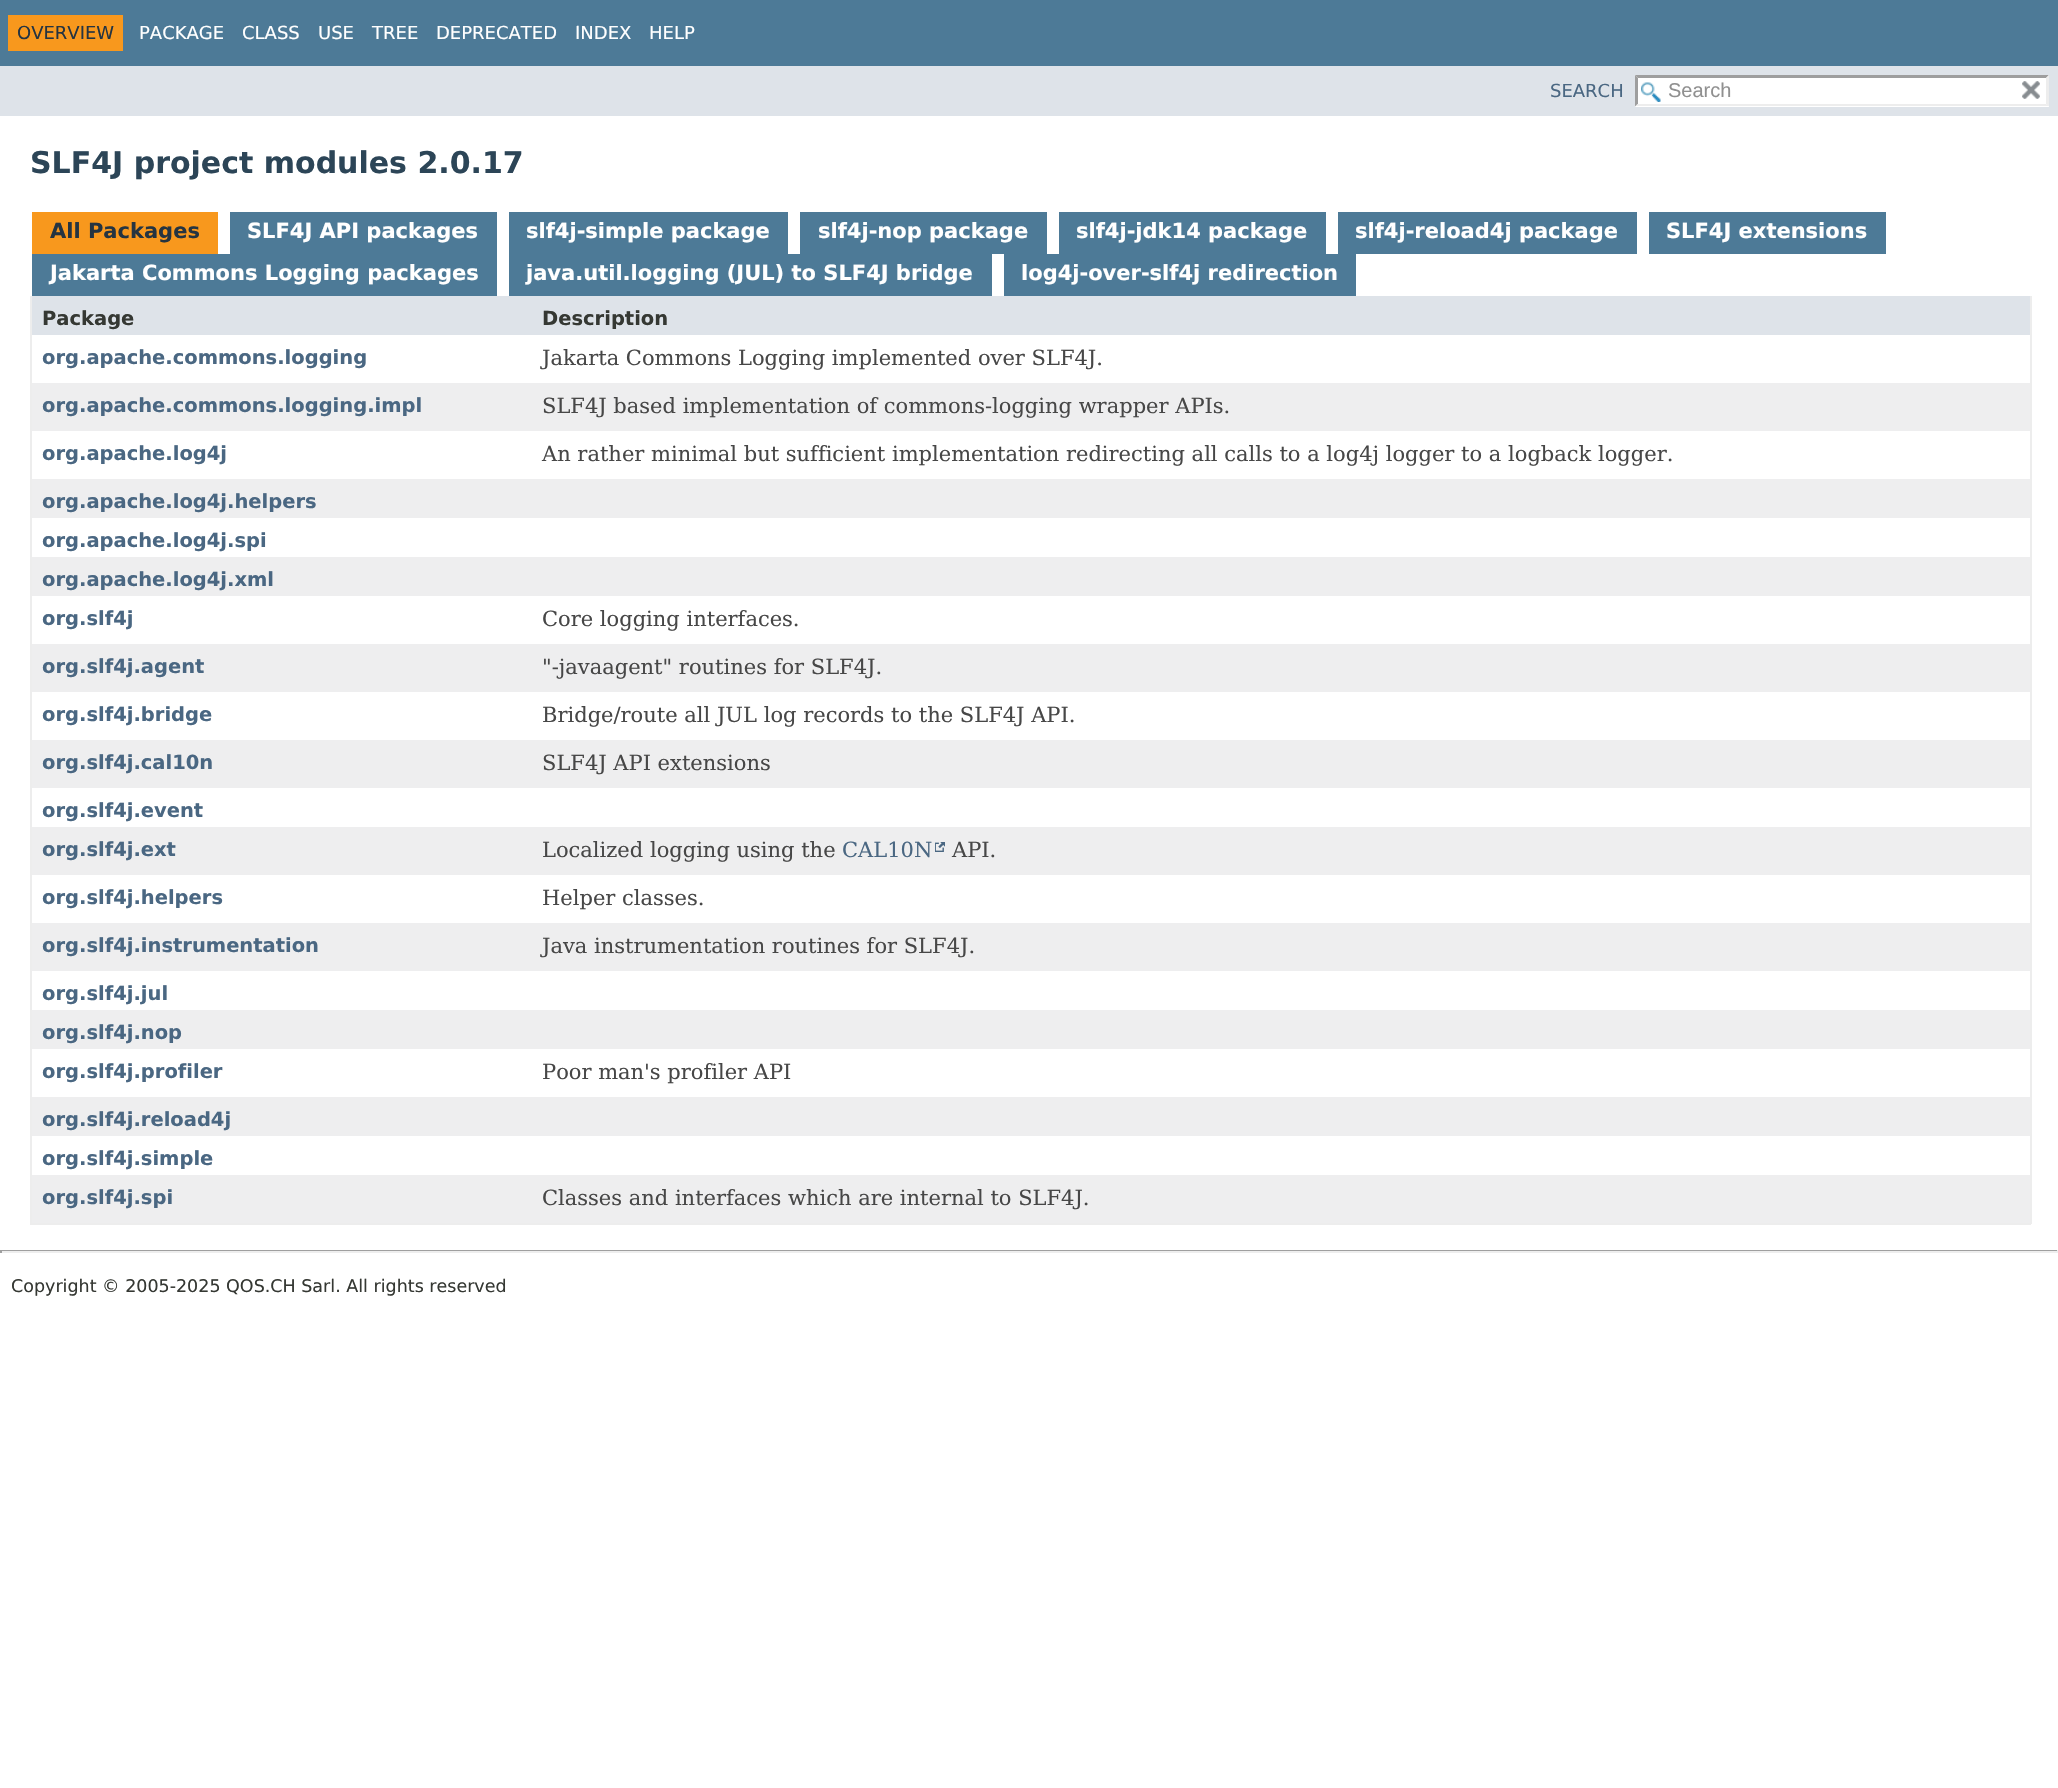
static SkFont makeFont(const char* family, int weight, float size, bool italic = false) {
  SkFontStyle style(weight, SkFontStyle::kNormal_Width,
    italic ? SkFontStyle::kItalic_Slant : SkFontStyle::kUpright_Slant);
  SkFont result(fontMgr->matchFamilyStyle(family, style), size);
  result.setSubpixel(true);
  return result;
}

static void text(SkCanvas* c, const char* s, float x, float y, const SkFont& font, SkColor color) {
  SkPaint ink(SkColor4f::FromColor(color));
  ink.setAntiAlias(true);
  c->drawString(s, x, y, font, ink);
}

static void box(SkCanvas* c, float l, float t, float r, float b, SkColor color) {
  SkPaint ink(SkColor4f::FromColor(color));
  ink.setAntiAlias(true);
  c->drawRect(SkRect::MakeLTRB(l, t, r, b), ink);
}

static void picture(SkCanvas* c, const char* path, float l, float t, float r, float b) {
  auto image = SkImages::DeferredFromEncodedData(SkData::MakeFromFileName(path));
  c->drawImageRect(image, SkRect::MakeLTRB(l, t, r, b), SkSamplingOptions());
}

void draw(SkCanvas* c) {
  SkPaint paint;
  paint.setAntiAlias(true);
  c->clear(0xffffffff);
  box(c, 0, 0, 2058, 66, 0xff4d7a97);
  box(c, 8, 15, 123, 51, 0xfff8981d);
  SkFont face1 = makeFont("DejaVu Sans", 400, 18);
  text(c, "OVERVIEW", 17, 39, face1, 0xff253441);
  text(c, "PACKAGE", 139, 39, face1, 0xffffffff);
  text(c, "CLASS", 242, 39, face1, 0xffffffff);
  text(c, "USE", 318, 39, face1, 0xffffffff);
  text(c, "TREE", 372, 39, face1, 0xffffffff);
  text(c, "DEPRECATED", 436, 39, face1, 0xffffffff);
  text(c, "INDEX", 575, 39, face1, 0xffffffff);
  text(c, "HELP", 649, 39, face1, 0xffffffff);
  box(c, 0, 66, 2058, 116, 0xffdee3e9);
  text(c, "SEARCH", 1550, 97, face1, 0xff4a6782);
  box(c, 1635, 75, 2049, 107, 0xffffffff);
  picture(c, "img_01.png", 1641, 82, 1661, 102);
  paint.setColor(0xff9e9e9e);
  c->drawPath(SkPathBuilder().moveTo(1635, 75).lineTo(2049, 75).lineTo(2046, 78).lineTo(1638, 78).close().detach(), paint);
  paint.setColor(0xffededed);
  c->drawPath(SkPathBuilder().moveTo(2049, 75).lineTo(2049, 106.5f).lineTo(2046, 103.5f).lineTo(2046, 78).close().detach(), paint);
  c->drawPath(SkPathBuilder().moveTo(2049, 106).lineTo(1635, 106).lineTo(1638, 104).lineTo(2046, 104).close().detach(), paint);
  paint.setColor(0xff9e9e9e);
  c->drawPath(SkPathBuilder().moveTo(1635, 106.5f).lineTo(1635, 75).lineTo(1638, 78).lineTo(1638, 103.5f).close().detach(), paint);
  SkFont face2 = makeFont("Liberation Sans", 400, 20);
  text(c, "Search", 1668, 97, face2, 0xff909090);
  picture(c, "img_02.png", 2022, 81, 2040, 99);
  SkFont face3 = makeFont("DejaVu Sans", 700, 30);
  text(c, "SLF4J project modules 2.0.17", 30, 173, face3, 0xff2c4557);
  box(c, 32, 212, 218, 254, 0xfff8981d);
  SkFont face4 = makeFont("DejaVu Sans", 700, 21);
  text(c, "All Packages", 50, 238, face4, 0xff253441);
  box(c, 230, 212, 497, 254, 0xff4d7a97);
  text(c, "SLF4J API packages", 247, 238, face4, 0xffffffff);
  box(c, 509, 212, 788, 254, 0xff4d7a97);
  text(c, "slf4j-simple package", 526, 238, face4, 0xffffffff);
  box(c, 800, 212, 1047, 254, 0xff4d7a97);
  text(c, "slf4j-nop package", 818, 238, face4, 0xffffffff);
  box(c, 1059, 212, 1326, 254, 0xff4d7a97);
  text(c, "slf4j-jdk14 package", 1076, 238, face4, 0xffffffff);
  box(c, 1338, 212, 1637, 254, 0xff4d7a97);
  text(c, "slf4j-reload4j package", 1355, 238, face4, 0xffffffff);
  box(c, 1649, 212, 1886, 254, 0xff4d7a97);
  text(c, "SLF4J extensions", 1666, 238, face4, 0xffffffff);
  box(c, 32, 254, 497, 296, 0xff4d7a97);
  text(c, "Jakarta Commons Logging packages", 50, 280, face4, 0xffffffff);
  box(c, 509, 254, 992, 296, 0xff4d7a97);
  text(c, "java.util.logging (JUL) to SLF4J bridge", 526, 280, face4, 0xffffffff);
  box(c, 1004, 254, 1356, 296, 0xff4d7a97);
  text(c, "log4j-over-slf4j redirection", 1021, 280, face4, 0xffffffff);
  box(c, 2030, 296, 2032, 1224, 0xffededed);
  box(c, 30, 1223, 2031, 1225, 0xffededed);
  box(c, 30, 296, 32, 1224, 0xffededed);
  box(c, 32, 296, 2030, 335, 0xffdee3e9);
  SkFont face5 = makeFont("DejaVu Sans", 700, 19.5f);
  text(c, "Package", 42, 325, face5, 0xff353833);
  text(c, "Description", 542, 325, face5, 0xff353833);
  text(c, "org.apache.commons.logging", 42, 364, face5, 0xff4a6782);
  SkFont face6 = makeFont("DejaVu Serif", 400, 21);
  text(c, "Jakarta Commons Logging implemented over SLF4J.", 542, 365, face6, 0xff474747);
  box(c, 32, 383, 2030, 431, 0xffeeeeef);
  text(c, "org.apache.commons.logging.impl", 42, 412, face5, 0xff4a6782);
  text(c, "SLF4J based implementation of commons-logging wrapper APIs.", 542, 413, face6, 0xff474747);
  text(c, "org.apache.log4j", 42, 460, face5, 0xff4a6782);
  text(c, "An rather minimal but sufficient implementation redirecting all calls to a log4j logger to a logback logger.", 542, 461, face6, 0xff474747);
  box(c, 32, 479, 2030, 518, 0xffeeeeef);
  text(c, "org.apache.log4j.helpers", 42, 508, face5, 0xff4a6782);
  text(c, "org.apache.log4j.spi", 42, 547, face5, 0xff4a6782);
  box(c, 32, 557, 2030, 596, 0xffeeeeef);
  text(c, "org.apache.log4j.xml", 42, 586, face5, 0xff4a6782);
  text(c, "org.slf4j", 42, 625, face5, 0xff4a6782);
  text(c, "Core logging interfaces.", 542, 626, face6, 0xff474747);
  box(c, 32, 644, 2030, 692, 0xffeeeeef);
  text(c, "org.slf4j.agent", 42, 673, face5, 0xff4a6782);
  text(c, "\"-javaagent\" routines for SLF4J.", 542, 674, face6, 0xff474747);
  text(c, "org.slf4j.bridge", 42, 721, face5, 0xff4a6782);
  text(c, "Bridge/route all JUL log records to the SLF4J API.", 542, 722, face6, 0xff474747);
  box(c, 32, 740, 2030, 788, 0xffeeeeef);
  text(c, "org.slf4j.cal10n", 42, 769, face5, 0xff4a6782);
  text(c, "SLF4J API extensions", 542, 770, face6, 0xff474747);
  text(c, "org.slf4j.event", 42, 817, face5, 0xff4a6782);
  box(c, 32, 827, 2030, 875, 0xffeeeeef);
  text(c, "org.slf4j.ext", 42, 856, face5, 0xff4a6782);
  text(c, "Localized logging using the", 542, 857, face6, 0xff474747);
  text(c, "CAL10N", 842, 857, face6, 0xff4a6782);
  picture(c, "img_03.png", 935, 842, 945, 852);
  text(c, "API.", 952, 857, face6, 0xff474747);
  text(c, "org.slf4j.helpers", 42, 904, face5, 0xff4a6782);
  text(c, "Helper classes.", 542, 905, face6, 0xff474747);
  box(c, 32, 923, 2030, 971, 0xffeeeeef);
  text(c, "org.slf4j.instrumentation", 42, 952, face5, 0xff4a6782);
  text(c, "Java instrumentation routines for SLF4J.", 542, 953, face6, 0xff474747);
  text(c, "org.slf4j.jul", 42, 1000, face5, 0xff4a6782);
  box(c, 32, 1010, 2030, 1049, 0xffeeeeef);
  text(c, "org.slf4j.nop", 42, 1039, face5, 0xff4a6782);
  text(c, "org.slf4j.profiler", 42, 1078, face5, 0xff4a6782);
  text(c, "Poor man's profiler API", 542, 1079, face6, 0xff474747);
  box(c, 32, 1097, 2030, 1136, 0xffeeeeef);
  text(c, "org.slf4j.reload4j", 42, 1126, face5, 0xff4a6782);
  text(c, "org.slf4j.simple", 42, 1165, face5, 0xff4a6782);
  box(c, 32, 1175, 2030, 1223, 0xffeeeeef);
  text(c, "org.slf4j.spi", 42, 1204, face5, 0xff4a6782);
  text(c, "Classes and interfaces which are internal to SLF4J.", 542, 1205, face6, 0xff474747);
  box(c, 0, 1250, 2058, 1251, 0xff9f9f9f);
  box(c, 2057, 1250, 2058, 1253, 0xffeeeeee);
  box(c, 0, 1251, 2058, 1253, 0xffeeeeee);
  box(c, 0, 1250, 2, 1253, 0xff9f9f9f);
  SkFont face7 = makeFont("DejaVu Sans", 400, 17.5f);
  text(c, "Copyright © 2005-2025 QOS.CH Sarl. All rights reserved", 11, 1292, face7, 0xff353833);
}
